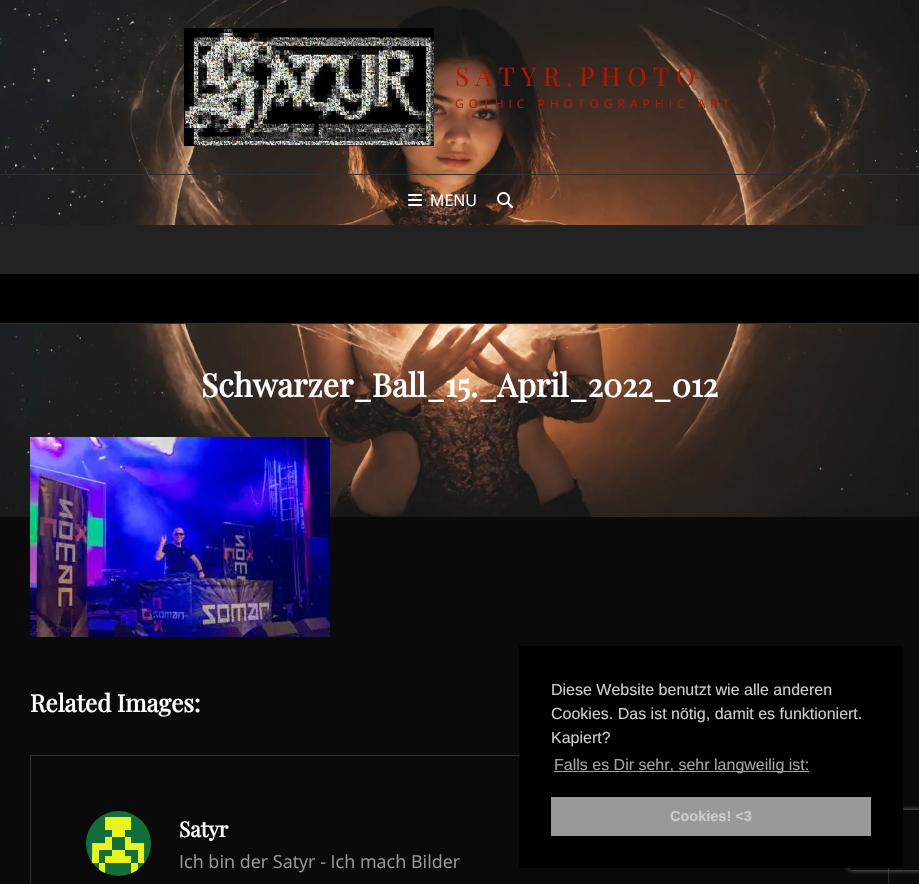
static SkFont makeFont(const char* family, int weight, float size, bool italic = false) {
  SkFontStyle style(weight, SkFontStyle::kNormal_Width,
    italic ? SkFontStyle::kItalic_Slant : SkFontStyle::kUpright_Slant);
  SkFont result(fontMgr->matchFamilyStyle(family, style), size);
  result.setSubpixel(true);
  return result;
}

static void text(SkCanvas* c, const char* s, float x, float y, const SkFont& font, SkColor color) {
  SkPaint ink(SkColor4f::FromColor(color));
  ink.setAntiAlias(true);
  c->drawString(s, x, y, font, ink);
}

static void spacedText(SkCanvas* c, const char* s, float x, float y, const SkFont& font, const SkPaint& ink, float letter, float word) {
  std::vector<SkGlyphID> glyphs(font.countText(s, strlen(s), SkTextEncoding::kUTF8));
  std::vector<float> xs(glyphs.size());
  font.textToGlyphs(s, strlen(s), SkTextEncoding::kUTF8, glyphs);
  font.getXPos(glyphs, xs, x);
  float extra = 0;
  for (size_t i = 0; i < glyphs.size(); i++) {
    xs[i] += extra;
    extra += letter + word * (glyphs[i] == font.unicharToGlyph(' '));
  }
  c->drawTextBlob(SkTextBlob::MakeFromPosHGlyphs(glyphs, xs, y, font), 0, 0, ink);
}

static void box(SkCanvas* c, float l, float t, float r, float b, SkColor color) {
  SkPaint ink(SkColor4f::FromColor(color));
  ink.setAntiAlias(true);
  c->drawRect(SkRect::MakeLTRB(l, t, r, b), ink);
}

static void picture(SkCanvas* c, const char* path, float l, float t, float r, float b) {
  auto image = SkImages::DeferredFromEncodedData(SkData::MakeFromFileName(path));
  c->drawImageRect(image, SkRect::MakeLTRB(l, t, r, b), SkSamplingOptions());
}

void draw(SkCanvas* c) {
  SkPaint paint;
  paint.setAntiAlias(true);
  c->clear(0xff0a0a0a);
  picture(c, "img_01.png", 0, 0, 919, 517);
  picture(c, "img_02.png", 184, 28, 434, 146);
  SkFont face1 = makeFont("Playfair Display", 400, 26);
  paint.setColor(0xffba1200);
  spacedText(c, "SATYR.PHOTO", 455, 86, face1, paint, 6.5f, 0);
  SkFont face2 = makeFont("Open Sans", 400, 12);
  spacedText(c, "GOTHIC PHOTOGRAPHIC ART", 455, 108, face2, paint, 5, 0);
  box(c, 0, 174, 919, 175, 0xff2f2f2f);
  picture(c, "img_03.png", 408, 194, 422, 206);
  SkFont face3 = makeFont("Open Sans", 400, 16);
  text(c, "MENU", 430, 206, face3, 0xffffffff);
  picture(c, "img_04.png", 497, 192, 513, 208);
  box(c, 0, 225, 919, 274, 0xff222222);
  box(c, 0, 274, 919, 323, 0xff000000);
  box(c, 0, 323, 919, 324, 0xff2f2f2f);
  SkFont face4 = makeFont("Playfair Display", 700, 32);
  text(c, "Schwarzer_Ball_15._April_2022_012", 201, 397, face4, 0xffffffff);
  picture(c, "img_05.png", 30, 437, 330, 637);
  SkFont face5 = makeFont("Playfair Display", 700, 24);
  text(c, "Related Images:", 30, 712, face5, 0xffffffff);
  paint.setStyle(SkPaint::kStroke_Style);
  paint.setStrokeWidth(1);
  paint.setColor(0xff2f2f2f);
  c->drawRect(SkRect::MakeLTRB(30.5f, 755.5f, 888.5f, 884.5f), paint);
  picture(c, "img_06.png", 86, 811, 151, 876);
  SkFont face6 = makeFont("Playfair Display", 700, 21);
  text(c, "Satyr", 179, 837, face6, 0xffffffff);
  SkFont face7 = makeFont("Open Sans", 400, 18);
  text(c, "Ich bin der Satyr - Ich mach Bilder", 179, 868, face7, 0xff999999);
  c->save();
  c->clipPath(SkPathBuilder(SkPathFillType::kEvenOdd).moveTo(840, 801).lineTo(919, 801).lineTo(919, 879).lineTo(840, 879).close().moveTo(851, 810).lineTo(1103, 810).cubicTo(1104, 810, 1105, 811, 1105, 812).lineTo(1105, 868).cubicTo(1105, 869, 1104, 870, 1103, 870).lineTo(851, 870).cubicTo(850, 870, 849, 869, 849, 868).lineTo(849, 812).cubicTo(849, 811, 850, 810, 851, 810).close().detach(), true);
  paint.setStyle(SkPaint::kFill_Style);
  paint.setColor(0xff808080);
  paint.setMaskFilter(SkMaskFilter::MakeBlur(kNormal_SkBlurStyle, 2.5f));
  c->drawRoundRect(SkRect::MakeLTRB(849, 810, 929, 870), 2, 2, paint);
  paint.setMaskFilter(nullptr);
  c->restore();
  box(c, 519, 646, 903, 868, 0xff000000);
  SkFont face8 = makeFont("Liberation Sans", 400, 16);
  text(c, "Diese Website benutzt wie alle anderen", 551, 695, face8, 0xffcccccc);
  text(c, "Cookies. Das ist nötig, damit es funktioniert.", 551, 719, face8, 0xffcccccc);
  text(c, "Kapiert?", 551, 743, face8, 0xffcccccc);
  box(c, 554, 771, 809, 772, 0xffa3a3a3);
  text(c, "Falls es Dir sehr, sehr langweilig ist:", 554, 770, face8, 0xffa3a3a3);
  box(c, 551, 797, 871, 836, 0xff999999);
  SkFont face9 = makeFont("Liberation Sans", 700, 14.5f);
  text(c, "Cookies! <3", 670, 821, face9, 0xffcccccc);
}
